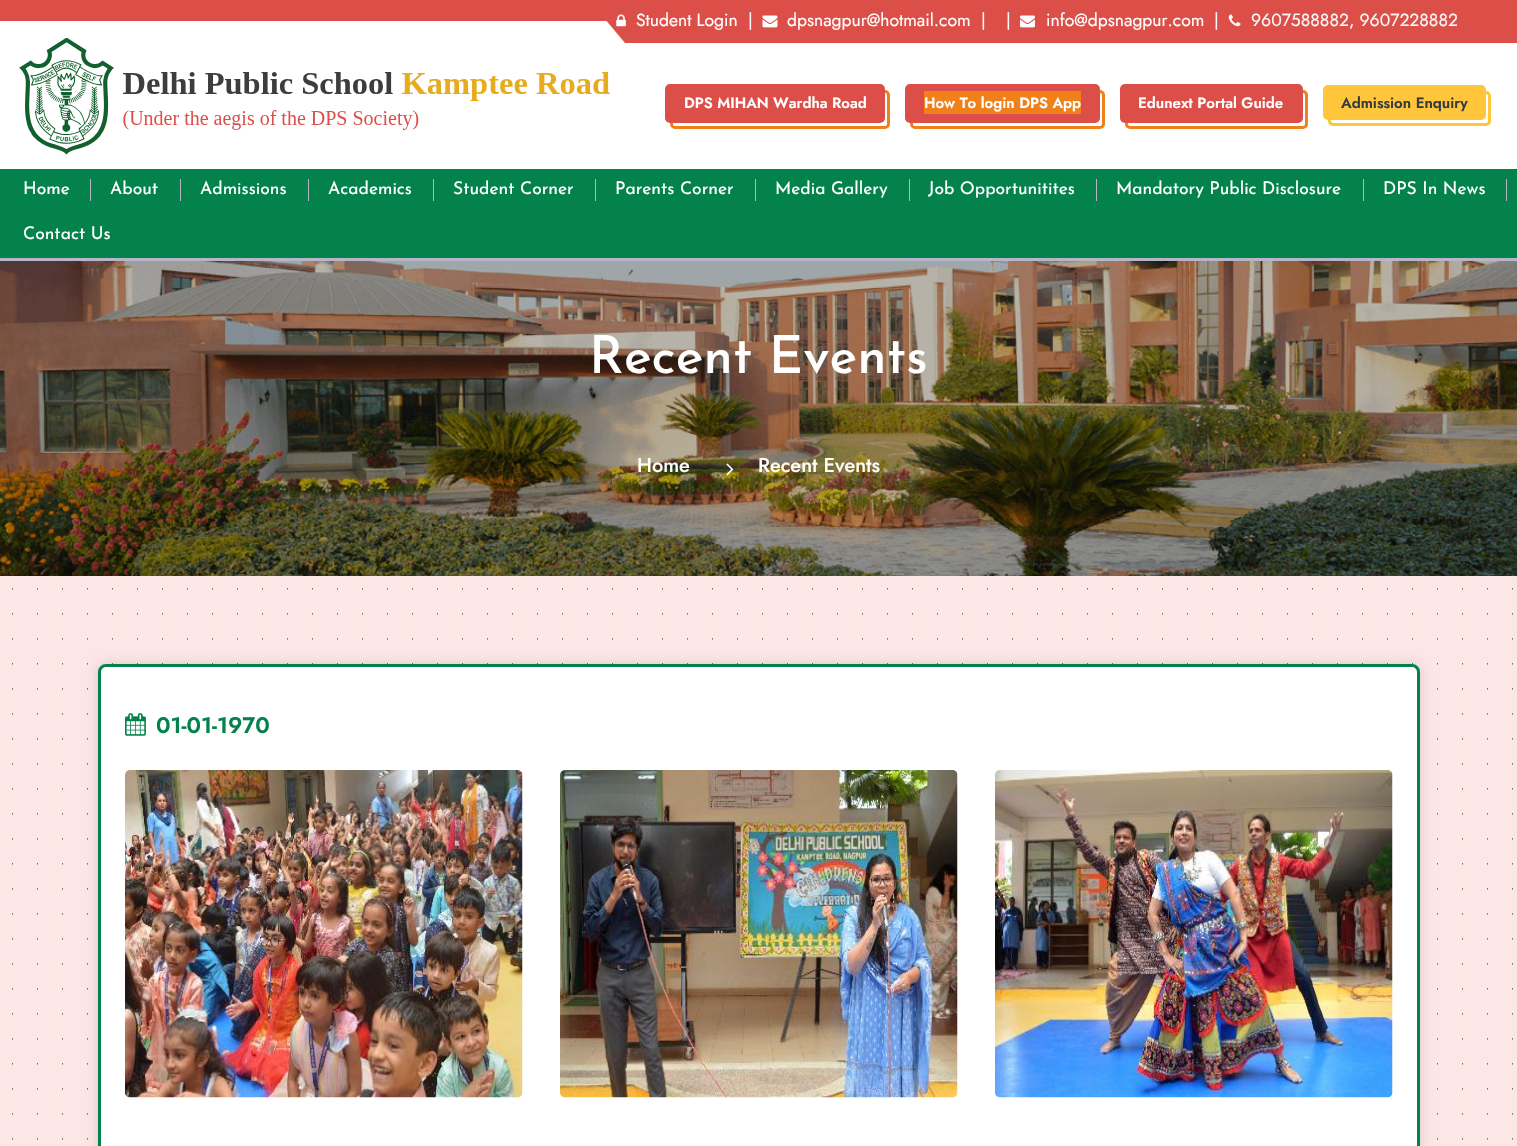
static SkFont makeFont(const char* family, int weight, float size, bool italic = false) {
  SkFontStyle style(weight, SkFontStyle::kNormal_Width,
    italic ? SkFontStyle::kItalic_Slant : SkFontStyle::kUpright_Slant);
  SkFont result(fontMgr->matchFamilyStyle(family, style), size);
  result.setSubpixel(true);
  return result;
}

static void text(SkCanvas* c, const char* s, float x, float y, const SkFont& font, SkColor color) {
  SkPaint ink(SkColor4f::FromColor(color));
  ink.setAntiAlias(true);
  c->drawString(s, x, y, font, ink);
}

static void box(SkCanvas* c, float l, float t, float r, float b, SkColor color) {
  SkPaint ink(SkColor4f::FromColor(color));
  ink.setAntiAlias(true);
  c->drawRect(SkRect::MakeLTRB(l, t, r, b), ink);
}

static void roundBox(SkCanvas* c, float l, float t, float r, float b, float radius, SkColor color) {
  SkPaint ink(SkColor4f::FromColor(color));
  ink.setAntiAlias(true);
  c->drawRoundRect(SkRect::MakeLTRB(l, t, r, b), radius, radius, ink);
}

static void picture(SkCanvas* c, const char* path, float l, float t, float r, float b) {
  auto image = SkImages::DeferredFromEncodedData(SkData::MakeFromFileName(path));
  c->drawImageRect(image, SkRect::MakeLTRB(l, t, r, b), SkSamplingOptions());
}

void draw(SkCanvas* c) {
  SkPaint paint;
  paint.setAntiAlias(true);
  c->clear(0xffffffff);
  box(c, 0, 258, 1517, 261, 0xffb5b7c9);
  box(c, 0, 0, 1517, 21, 0xffdc4f49);
  picture(c, "img_05.png", 19, 38, 610, 155);
  paint.setColor(0xffdc4f49);
  c->drawPath(SkPathBuilder().moveTo(589, 0).lineTo(1499, 0).lineTo(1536, 43).lineTo(625, 43).close().detach(), paint);
  picture(c, "img_01.png", 616, 14, 626, 27);
  SkFont face1 = makeFont("Jost", 400, 17.5f);
  text(c, "Student Login", 636, 26, face1, 0xffffffff);
  text(c, "|", 748, 26, face1, 0xfff8f9fa);
  picture(c, "img_02.png", 762, 15, 778, 28);
  text(c, "dpsnagpur@hotmail.com", 787, 26, face1, 0xffffffff);
  text(c, "|", 981, 26, face1, 0xfff8f9fa);
  text(c, "|", 1006, 26, face1, 0xfff8f9fa);
  picture(c, "img_03.png", 1020, 15, 1035, 28);
  text(c, "info@dpsnagpur.com", 1046, 26, face1, 0xffffffff);
  text(c, "|", 1214, 26, face1, 0xfff8f9fa);
  picture(c, "img_04.png", 1228, 14, 1241, 27);
  text(c, "9607588882, 9607228882", 1251, 26, face1, 0xfff8f9fa);
  paint.setStyle(SkPaint::kStroke_Style);
  paint.setStrokeWidth(3);
  paint.setColor(0xfff08019);
  c->drawRoundRect(SkRect::MakeLTRB(671.5f, 91.5f, 888.5f, 127.5f), 3.5f, 3.5f, paint);
  roundBox(c, 665, 84, 885, 123, 5, 0xffdc4f49);
  SkFont face2 = makeFont("Jost", 600, 15);
  text(c, "DPS MIHAN Wardha Road", 684, 108, face2, 0xffffffff);
  c->drawRoundRect(SkRect::MakeLTRB(911.5f, 91.5f, 1103.5f, 127.5f), 3.5f, 3.5f, paint);
  roundBox(c, 905, 84, 1100, 123, 5, 0xffdc4f49);
  box(c, 924, 91, 1081, 114, 0xfff08019);
  text(c, "How To login DPS App", 924, 108, face2, 0xffffffff);
  c->drawRoundRect(SkRect::MakeLTRB(1126.5f, 91.5f, 1306.5f, 127.5f), 3.5f, 3.5f, paint);
  roundBox(c, 1120, 84, 1303, 123, 5, 0xffdc4f49);
  text(c, "Edunext Portal Guide", 1138, 108, face2, 0xffffffff);
  paint.setColor(0xffffc63c);
  c->drawRoundRect(SkRect::MakeLTRB(1329.5f, 92.5f, 1489.5f, 124.5f), 3.5f, 3.5f, paint);
  roundBox(c, 1323, 85, 1486, 120, 5, 0xffffc63c);
  text(c, "Admission Enquiry", 1341, 108, face2, 0xff343a40);
  box(c, 0, 169, 1517, 258, 0xff03834b);
  SkFont face3 = makeFont("Josefin Sans", 400, 17.5f);
  text(c, "Home", 23, 194, face3, 0xffffffff);
  box(c, 90, 179, 91, 201, 0xffb5b7c9);
  text(c, "About", 110, 194, face3, 0xffffffff);
  box(c, 180, 179, 181, 201, 0xffb5b7c9);
  text(c, "Admissions", 200, 194, face3, 0xffffffff);
  box(c, 308, 179, 309, 201, 0xffb5b7c9);
  text(c, "Academics", 328, 194, face3, 0xffffffff);
  box(c, 433, 179, 434, 201, 0xffb5b7c9);
  text(c, "Student Corner", 453, 194, face3, 0xffffffff);
  box(c, 595, 179, 596, 201, 0xffb5b7c9);
  text(c, "Parents Corner", 615, 194, face3, 0xffffffff);
  box(c, 755, 179, 756, 201, 0xffb5b7c9);
  text(c, "Media Gallery", 775, 194, face3, 0xffffffff);
  box(c, 909, 179, 910, 201, 0xffb5b7c9);
  text(c, "Job Opportunitites", 928, 194, face3, 0xffffffff);
  box(c, 1096, 179, 1097, 201, 0xffb5b7c9);
  text(c, "Mandatory Public Disclosure", 1116, 194, face3, 0xffffffff);
  box(c, 1363, 179, 1364, 201, 0xffb5b7c9);
  text(c, "DPS In News", 1383, 194, face3, 0xffffffff);
  box(c, 1506, 179, 1507, 201, 0xffb5b7c9);
  text(c, "Contact Us", 23, 239, face3, 0xffffffff);
  picture(c, "img_06.png", 0, 261, 1517, 576);
  SkFont face4 = makeFont("Josefin Sans", 500, 52.5f);
  text(c, "Recent Events", 589, 373, face4, 0xffffffff);
  SkFont face5 = makeFont("Jost", 500, 20);
  text(c, "Home", 637, 472, face5, 0xffffffff);
  picture(c, "img_07.png", 726, 463, 734, 476);
  text(c, "Recent Events", 758, 472, face5, 0xffffffff);
  box(c, 0, 576, 1517, 1146, 0xfffde7e6);
  paint.setStrokeWidth(1.2f);
  paint.setStrokeCap(SkPaint::kRound_Cap);
  paint.setColor(0xff013300);
  paint.setPathEffect(SkDashPathEffect::Make({{0, 25}}, 0));
  c->drawPath(SkPathBuilder().moveTo(12.5f, 588.8f).lineTo(1512.8f, 588.8f).detach(), paint);
  paint.setPathEffect(nullptr);
  paint.setPathEffect(SkDashPathEffect::Make({{0, 25}}, 0));
  c->drawPath(SkPathBuilder().moveTo(12.5f, 613.8f).lineTo(1512.8f, 613.8f).detach(), paint);
  paint.setPathEffect(nullptr);
  paint.setPathEffect(SkDashPathEffect::Make({{0, 25}}, 0));
  c->drawPath(SkPathBuilder().moveTo(12.5f, 638.8f).lineTo(1512.8f, 638.8f).detach(), paint);
  paint.setPathEffect(nullptr);
  paint.setPathEffect(SkDashPathEffect::Make({{0, 25}}, 0));
  c->drawPath(SkPathBuilder().moveTo(12.5f, 663.8f).lineTo(1512.8f, 663.8f).detach(), paint);
  paint.setPathEffect(nullptr);
  paint.setPathEffect(SkDashPathEffect::Make({{0, 25}}, 0));
  c->drawPath(SkPathBuilder().moveTo(12.5f, 688.8f).lineTo(1512.8f, 688.8f).detach(), paint);
  paint.setPathEffect(nullptr);
  paint.setPathEffect(SkDashPathEffect::Make({{0, 25}}, 0));
  c->drawPath(SkPathBuilder().moveTo(12.5f, 713.8f).lineTo(1512.8f, 713.8f).detach(), paint);
  paint.setPathEffect(nullptr);
  paint.setPathEffect(SkDashPathEffect::Make({{0, 25}}, 0));
  c->drawPath(SkPathBuilder().moveTo(12.5f, 738.8f).lineTo(1512.8f, 738.8f).detach(), paint);
  paint.setPathEffect(nullptr);
  paint.setPathEffect(SkDashPathEffect::Make({{0, 25}}, 0));
  c->drawPath(SkPathBuilder().moveTo(12.5f, 763.8f).lineTo(1512.8f, 763.8f).detach(), paint);
  paint.setPathEffect(nullptr);
  paint.setPathEffect(SkDashPathEffect::Make({{0, 25}}, 0));
  c->drawPath(SkPathBuilder().moveTo(12.5f, 788.8f).lineTo(1512.8f, 788.8f).detach(), paint);
  paint.setPathEffect(nullptr);
  paint.setPathEffect(SkDashPathEffect::Make({{0, 25}}, 0));
  c->drawPath(SkPathBuilder().moveTo(12.5f, 813.8f).lineTo(1512.8f, 813.8f).detach(), paint);
  paint.setPathEffect(nullptr);
  paint.setPathEffect(SkDashPathEffect::Make({{0, 25}}, 0));
  c->drawPath(SkPathBuilder().moveTo(12.5f, 838.8f).lineTo(1512.8f, 838.8f).detach(), paint);
  paint.setPathEffect(nullptr);
  paint.setPathEffect(SkDashPathEffect::Make({{0, 25}}, 0));
  c->drawPath(SkPathBuilder().moveTo(12.5f, 863.8f).lineTo(1512.8f, 863.8f).detach(), paint);
  paint.setPathEffect(nullptr);
  paint.setPathEffect(SkDashPathEffect::Make({{0, 25}}, 0));
  c->drawPath(SkPathBuilder().moveTo(12.5f, 888.8f).lineTo(1512.8f, 888.8f).detach(), paint);
  paint.setPathEffect(nullptr);
  paint.setPathEffect(SkDashPathEffect::Make({{0, 25}}, 0));
  c->drawPath(SkPathBuilder().moveTo(12.5f, 913.8f).lineTo(1512.8f, 913.8f).detach(), paint);
  paint.setPathEffect(nullptr);
  paint.setPathEffect(SkDashPathEffect::Make({{0, 25}}, 0));
  c->drawPath(SkPathBuilder().moveTo(12.5f, 938.8f).lineTo(1512.8f, 938.8f).detach(), paint);
  paint.setPathEffect(nullptr);
  paint.setPathEffect(SkDashPathEffect::Make({{0, 25}}, 0));
  c->drawPath(SkPathBuilder().moveTo(12.5f, 963.8f).lineTo(1512.8f, 963.8f).detach(), paint);
  paint.setPathEffect(nullptr);
  paint.setPathEffect(SkDashPathEffect::Make({{0, 25}}, 0));
  c->drawPath(SkPathBuilder().moveTo(12.5f, 988.8f).lineTo(1512.8f, 988.8f).detach(), paint);
  paint.setPathEffect(nullptr);
  paint.setPathEffect(SkDashPathEffect::Make({{0, 25}}, 0));
  c->drawPath(SkPathBuilder().moveTo(12.5f, 1013.8f).lineTo(1512.8f, 1013.8f).detach(), paint);
  paint.setPathEffect(nullptr);
  paint.setPathEffect(SkDashPathEffect::Make({{0, 25}}, 0));
  c->drawPath(SkPathBuilder().moveTo(12.5f, 1038.8f).lineTo(1512.8f, 1038.8f).detach(), paint);
  paint.setPathEffect(nullptr);
  paint.setPathEffect(SkDashPathEffect::Make({{0, 25}}, 0));
  c->drawPath(SkPathBuilder().moveTo(12.5f, 1063.8f).lineTo(1512.8f, 1063.8f).detach(), paint);
  paint.setPathEffect(nullptr);
  paint.setPathEffect(SkDashPathEffect::Make({{0, 25}}, 0));
  c->drawPath(SkPathBuilder().moveTo(12.5f, 1088.8f).lineTo(1512.8f, 1088.8f).detach(), paint);
  paint.setPathEffect(nullptr);
  paint.setPathEffect(SkDashPathEffect::Make({{0, 25}}, 0));
  c->drawPath(SkPathBuilder().moveTo(12.5f, 1113.8f).lineTo(1512.8f, 1113.8f).detach(), paint);
  paint.setPathEffect(nullptr);
  paint.setPathEffect(SkDashPathEffect::Make({{0, 25}}, 0));
  c->drawPath(SkPathBuilder().moveTo(12.5f, 1138.8f).lineTo(1512.8f, 1138.8f).detach(), paint);
  paint.setPathEffect(nullptr);
  paint.setStyle(SkPaint::kFill_Style);
  paint.setColor(0x24000000);
  paint.setMaskFilter(SkMaskFilter::MakeBlur(kNormal_SkBlurStyle, 6));
  c->drawRoundRect(SkRect::MakeLTRB(98, 664, 1420, 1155), 8, 8, paint);
  paint.setMaskFilter(nullptr);
  paint.setColor(0xffffffff);
  c->drawRoundRect(SkRect::MakeLTRB(99.5f, 665.5f, 1418.5f, 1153.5f), 6.5f, 6.5f, paint);
  paint.setStyle(SkPaint::kStroke_Style);
  paint.setStrokeWidth(3);
  paint.setStrokeCap(SkPaint::kButt_Cap);
  paint.setColor(0xff03834b);
  c->drawRoundRect(SkRect::MakeLTRB(99.5f, 665.5f, 1418.5f, 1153.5f), 6.5f, 6.5f, paint);
  picture(c, "img_08.png", 125, 713, 146, 736);
  SkFont face6 = makeFont("Jost", 600, 22.5f);
  text(c, "01-01-1970", 156, 733, face6, 0xff03834b);
  picture(c, "img_09.png", 125, 770, 523, 1098);
  picture(c, "img_10.png", 560, 770, 958, 1098);
  picture(c, "img_11.png", 995, 770, 1393, 1098);
}
